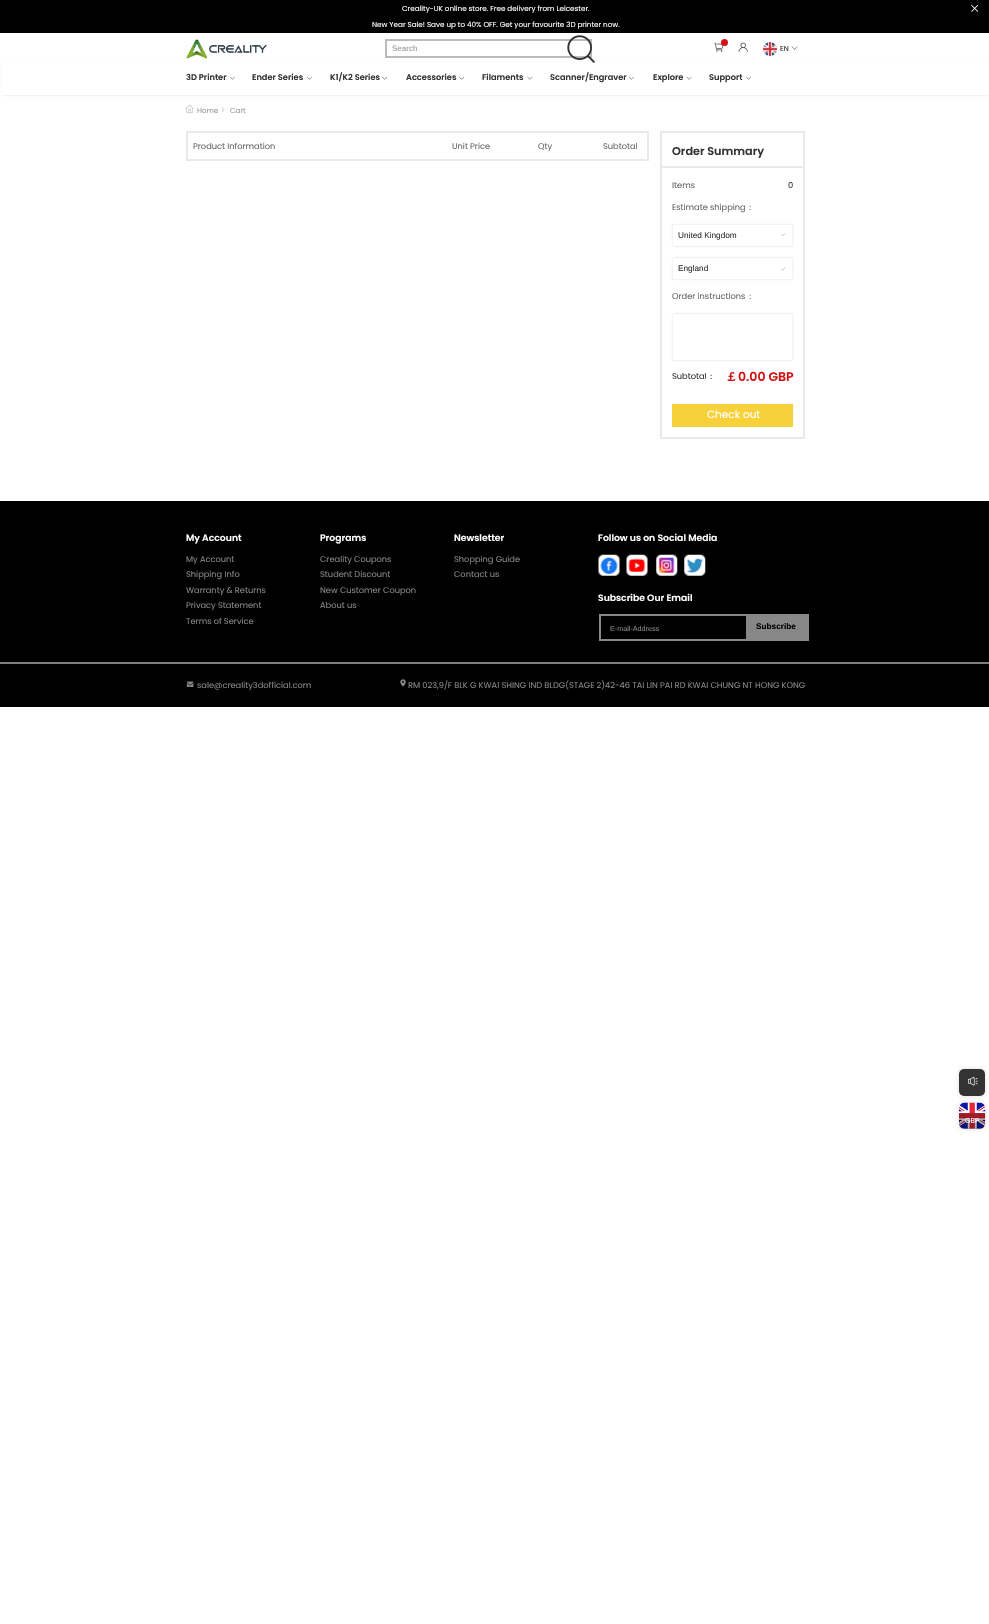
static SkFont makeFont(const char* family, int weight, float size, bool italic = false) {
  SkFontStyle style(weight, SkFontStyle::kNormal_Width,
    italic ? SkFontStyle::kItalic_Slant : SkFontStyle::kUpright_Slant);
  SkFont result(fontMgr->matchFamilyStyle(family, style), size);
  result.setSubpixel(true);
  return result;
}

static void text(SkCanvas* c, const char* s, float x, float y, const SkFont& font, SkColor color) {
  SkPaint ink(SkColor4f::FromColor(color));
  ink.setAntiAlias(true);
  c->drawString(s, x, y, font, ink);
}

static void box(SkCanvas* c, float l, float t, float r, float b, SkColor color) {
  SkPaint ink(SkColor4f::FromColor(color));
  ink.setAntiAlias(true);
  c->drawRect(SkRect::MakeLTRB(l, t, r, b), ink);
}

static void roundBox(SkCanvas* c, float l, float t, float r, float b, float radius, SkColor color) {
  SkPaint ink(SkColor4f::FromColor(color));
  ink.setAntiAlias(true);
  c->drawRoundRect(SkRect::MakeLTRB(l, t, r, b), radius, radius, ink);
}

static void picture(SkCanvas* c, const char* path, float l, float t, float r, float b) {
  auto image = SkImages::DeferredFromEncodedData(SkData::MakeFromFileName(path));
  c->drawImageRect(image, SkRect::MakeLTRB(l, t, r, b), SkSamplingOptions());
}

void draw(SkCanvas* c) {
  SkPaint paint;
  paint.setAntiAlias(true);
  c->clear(0xffffffff);
  box(c, 0, 0, 989, 33, 0xff000000);
  SkFont face1 = makeFont("Poppins", 400, 7.2f);
  text(c, "Creality-UK online store. Free delivery from Leicester.", 402, 11, face1, 0xffffffff);
  picture(c, "img_01.png", 971, 5, 978, 12);
  text(c, "New Year Sale! Save up to 40% OFF. Get your favourite 3D printer now.", 372, 27, face1, 0xffffffff);
  picture(c, "img_02.png", 186, 39, 267, 59);
  paint.setStyle(SkPaint::kStroke_Style);
  paint.setStrokeWidth(2);
  paint.setColor(0xffbbbbbb);
  c->drawRect(SkRect::MakeLTRB(386, 40, 591, 57), paint);
  SkFont face2 = makeFont("Liberation Sans", 400, 8);
  text(c, "Search", 392, 51, face2, 0xff999999);
  paint.setStyle(SkPaint::kFill_Style);
  paint.setColor(0x26000000);
  paint.setMaskFilter(SkMaskFilter::MakeBlur(kNormal_SkBlurStyle, 1));
  c->drawRect(SkRect::MakeLTRB(2, 63, 989, 95), paint);
  paint.setMaskFilter(nullptr);
  box(c, 1, 62, 989, 95, 0xffffffff);
  picture(c, "img_03.png", 567, 35, 595, 63);
  picture(c, "img_04.png", 714, 42, 724, 52);
  paint.setColor(0xffd11515);
  c->drawCircle(724.5f, 42.5f, 3.5f, paint);
  picture(c, "img_05.png", 738, 42, 748, 52);
  picture(c, "img_06.png", 763, 42, 777, 56);
  text(c, "EN", 780, 51, face1, 0xff333333);
  picture(c, "img_07.png", 791, 46, 798, 50);
  SkFont face3 = makeFont("Poppins", 600, 8.25f);
  text(c, "3D Printer", 186, 80, face3, 0xff333333);
  picture(c, "img_08.png", 229, 76, 235, 80);
  text(c, "Ender Series", 252, 80, face3, 0xff333333);
  picture(c, "img_08.png", 306, 76, 312, 80);
  text(c, "K1/K2 Series", 330, 80, face3, 0xff333333);
  picture(c, "img_09.png", 382, 76, 387, 80);
  text(c, "Accessories", 406, 80, face3, 0xff333333);
  picture(c, "img_09.png", 459, 76, 464, 80);
  text(c, "Filaments", 482, 80, face3, 0xff333333);
  picture(c, "img_10.png", 527, 76, 533, 80);
  text(c, "Scanner/Engraver", 550, 80, face3, 0xff333333);
  picture(c, "img_08.png", 628, 76, 634, 80);
  text(c, "Explore", 653, 80, face3, 0xff333333);
  picture(c, "img_11.png", 686, 76, 692, 80);
  text(c, "Support", 709, 80, face3, 0xff333333);
  picture(c, "img_09.png", 746, 76, 751, 80);
  picture(c, "img_12.png", 185, 104, 194, 113);
  text(c, "Home", 197, 113, face1, 0xff999999);
  picture(c, "img_13.png", 222, 107, 225, 112);
  text(c, "Cart", 230, 113, face1, 0xff999999);
  paint.setStyle(SkPaint::kStroke_Style);
  paint.setColor(0xffe9e9e9);
  c->drawRect(SkRect::MakeLTRB(187, 132, 648, 160), paint);
  SkFont face4 = makeFont("Poppins", 400, 8.25f);
  text(c, "Product Information", 193, 149, face4, 0xff666666);
  text(c, "Unit Price", 452, 149, face4, 0xff666666);
  text(c, "Qty", 538, 149, face4, 0xff666666);
  text(c, "Subtotal", 603, 149, face4, 0xff666666);
  c->drawRect(SkRect::MakeLTRB(661, 132, 804, 438), paint);
  box(c, 662, 166, 803, 168, 0xffe9e9e9);
  SkFont face5 = makeFont("Poppins", 600, 11.25f);
  text(c, "Order Summary", 672, 155, face5, 0xff333333);
  text(c, "Items", 672, 188, face4, 0xff666666);
  text(c, "0", 788, 188, face4, 0xff333333);
  text(c, "Estimate shipping", 672, 210, face4, 0xff666666);
  SkFont face6 = makeFont("WenQuanYi Zen Hei", 500, 8.25f);
  text(c, "：", 746, 210, face6, 0xff666666);
  paint.setStrokeWidth(0.5f);
  paint.setColor(0xffdcdfe6);
  c->drawRoundRect(SkRect::MakeLTRB(672.25f, 224.25f, 792.75f, 246.75f), 1.75f, 1.75f, paint);
  SkFont face7 = makeFont("Liberation Sans", 400, 8.25f);
  text(c, "United Kingdom", 678, 238, face7, 0xff333333);
  picture(c, "img_14.png", 781, 233, 786, 236);
  c->drawRoundRect(SkRect::MakeLTRB(672.25f, 257.25f, 792.75f, 279.75f), 1.75f, 1.75f, paint);
  text(c, "England", 678, 271, face7, 0xff333333);
  picture(c, "img_15.png", 781, 267, 786, 271);
  text(c, "Order instructions", 672, 299, face4, 0xff666666);
  text(c, "：", 746, 299, face6, 0xff666666);
  c->drawRoundRect(SkRect::MakeLTRB(672.25f, 313.25f, 792.75f, 360.75f), 1.75f, 1.75f, paint);
  text(c, "Subtotal", 672, 379, face4, 0xff333333);
  text(c, "：", 707, 379, face6, 0xff333333);
  SkFont face8 = makeFont("WenQuanYi Zen Hei", 700, 12.5f);
  text(c, "￡", 725, 381, face8, 0xffd11515);
  SkFont face9 = makeFont("Poppins", 600, 12.5f);
  text(c, "0.00 GBP", 738, 381, face9, 0xffd11515);
  box(c, 672, 404, 793, 427, 0xfff7d13a);
  SkFont face10 = makeFont("Poppins", 400, 10.5f);
  text(c, "Check out", 707, 418, face10, 0xffffffff);
  box(c, 0, 501, 989, 707, 0xff000000);
  SkFont face11 = makeFont("Poppins", 600, 9.25f);
  text(c, "My Account", 186, 541, face11, 0xffffffff);
  text(c, "My Account", 186, 562, face4, 0xff878787);
  text(c, "Shipping Info", 186, 577, face4, 0xff878787);
  text(c, "Warranty & Returns", 186, 593, face4, 0xff878787);
  text(c, "Privacy Statement", 186, 608, face4, 0xff878787);
  text(c, "Terms of Service", 186, 624, face4, 0xff878787);
  text(c, "Programs", 320, 541, face11, 0xffffffff);
  text(c, "Creality Coupons", 320, 562, face4, 0xff878787);
  text(c, "Student Discount", 320, 577, face4, 0xff878787);
  text(c, "New Customer Coupon", 320, 593, face4, 0xff878787);
  text(c, "About us", 320, 608, face4, 0xff878787);
  text(c, "Newsletter", 454, 541, face11, 0xffffffff);
  text(c, "Shopping Guide", 454, 562, face4, 0xff878787);
  text(c, "Contact us", 454, 577, face4, 0xff878787);
  text(c, "Follow us on Social Media", 598, 541, face11, 0xffffffff);
  picture(c, "img_16.png", 598, 554, 620, 576);
  picture(c, "img_17.png", 626, 554, 648, 576);
  picture(c, "img_18.png", 656, 554, 678, 576);
  picture(c, "img_19.png", 684, 554, 706, 576);
  text(c, "Subscribe Our Email", 598, 601, face11, 0xffffffff);
  paint.setStrokeWidth(2);
  paint.setColor(0xff878787);
  c->drawRect(SkRect::MakeLTRB(600, 615, 808, 640), paint);
  SkFont face12 = makeFont("Liberation Sans", 400, 7.2f);
  text(c, "E-mail-Address", 610, 631, face12, 0xff878787);
  box(c, 746, 616, 807, 639, 0xff878787);
  SkFont face13 = makeFont("Liberation Sans", 700, 8.25f);
  text(c, "Subscribe", 756, 629, face13, 0xff000000);
  box(c, 0, 662, 989, 664, 0xff808080);
  picture(c, "img_20.png", 186, 681, 194, 687);
  text(c, "sale@creality3dofficial.com", 197, 688, face4, 0xff878787);
  picture(c, "img_21.png", 400, 679, 406, 687);
  text(c, "RM 023,9/F BLK G KWAI SHING IND BLDG(STAGE 2)42-46 TAI LIN PAI RD KWAI CHUNG NT HONG KONG", 408, 688, face4, 0xff878787);
  paint.setStyle(SkPaint::kFill_Style);
  paint.setColor(0x2407162c);
  paint.setMaskFilter(SkMaskFilter::MakeBlur(kNormal_SkBlurStyle, 2.5f));
  c->drawRoundRect(SkRect::MakeLTRB(959, 1103, 985, 1129), 5, 5, paint);
  paint.setMaskFilter(nullptr);
  roundBox(c, 959, 1103, 985, 1129, 5, 0xffffffff);
  c->save();
  c->clipPath(SkPathBuilder(SkPathFillType::kEvenOdd).moveTo(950, 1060).lineTo(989, 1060).lineTo(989, 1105).lineTo(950, 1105).close().moveTo(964, 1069).lineTo(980, 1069).cubicTo(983, 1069, 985, 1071, 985, 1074).lineTo(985, 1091).cubicTo(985, 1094, 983, 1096, 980, 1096).lineTo(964, 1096).cubicTo(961, 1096, 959, 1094, 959, 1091).lineTo(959, 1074).cubicTo(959, 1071, 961, 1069, 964, 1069).close().detach(), true);
  paint.setMaskFilter(SkMaskFilter::MakeBlur(kNormal_SkBlurStyle, 2.5f));
  c->drawRoundRect(SkRect::MakeLTRB(959, 1069, 985, 1096), 5, 5, paint);
  paint.setMaskFilter(nullptr);
  c->restore();
  roundBox(c, 959, 1069, 985, 1096, 5, 0xcc000000);
  picture(c, "img_22.png", 968, 1076, 978, 1086);
  picture(c, "img_23.png", 959, 1102, 986, 1129);
  paint.setColor(0x4d000000);
  c->drawPath(SkPathBuilder().moveTo(959, 1113).lineTo(985, 1113).lineTo(985, 1124).cubicTo(985, 1127, 983, 1129, 980, 1129).lineTo(964, 1129).cubicTo(961, 1129, 959, 1127, 959, 1124).close().detach(), paint);
  text(c, "GBP", 965, 1123, face1, 0xffffffff);
}
